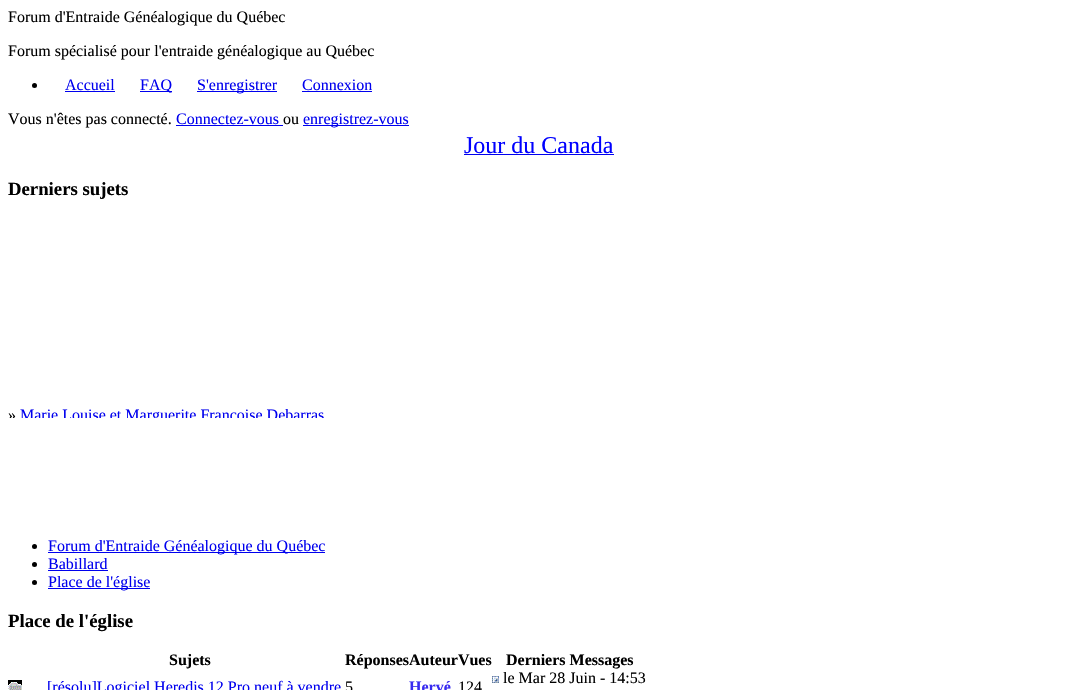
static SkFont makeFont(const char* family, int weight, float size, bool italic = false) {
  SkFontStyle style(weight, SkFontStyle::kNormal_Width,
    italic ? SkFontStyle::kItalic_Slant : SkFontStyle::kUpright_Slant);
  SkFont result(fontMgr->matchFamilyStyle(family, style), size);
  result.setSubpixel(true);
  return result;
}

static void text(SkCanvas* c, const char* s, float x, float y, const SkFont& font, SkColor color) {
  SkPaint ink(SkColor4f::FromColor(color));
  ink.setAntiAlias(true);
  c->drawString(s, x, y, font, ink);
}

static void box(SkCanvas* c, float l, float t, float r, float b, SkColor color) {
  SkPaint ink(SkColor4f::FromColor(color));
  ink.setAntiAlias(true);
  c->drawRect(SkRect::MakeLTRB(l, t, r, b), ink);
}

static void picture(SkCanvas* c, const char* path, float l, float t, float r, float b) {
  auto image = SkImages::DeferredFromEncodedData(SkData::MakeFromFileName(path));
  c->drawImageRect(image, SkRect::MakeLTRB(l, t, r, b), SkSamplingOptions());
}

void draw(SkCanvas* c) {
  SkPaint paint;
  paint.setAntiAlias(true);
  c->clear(0xffffffff);
  SkFont face1 = makeFont("Liberation Serif", 400, 16);
  text(c, "Forum d'Entraide Généalogique du Québec", 8, 22, face1, 0xff000000);
  text(c, "Forum spécialisé pour l'entraide généalogique au Québec", 8, 56, face1, 0xff000000);
  paint.setColor(0xff000000);
  c->drawCircle(34.5f, 85.5f, 2.5f, paint);
  text(c, "Accueil", 65, 90, face1, 0xff0000ee);
  box(c, 65, 91, 115, 92, 0xff0000ee);
  box(c, 140, 91, 172, 92, 0xff0000ee);
  text(c, "FAQ", 140, 90, face1, 0xff0000ee);
  box(c, 197, 91, 277, 92, 0xff0000ee);
  text(c, "S'enregistrer", 197, 90, face1, 0xff0000ee);
  text(c, "Connexion", 302, 90, face1, 0xff0000ee);
  box(c, 302, 91, 372, 92, 0xff0000ee);
  text(c, "Vous n'êtes pas connecté.", 8, 124, face1, 0xff000000);
  text(c, "Connectez-vous", 176, 124, face1, 0xff0000ee);
  text(c, "ou", 283, 124, face1, 0xff000000);
  box(c, 176, 125, 283, 126, 0xff0000ee);
  box(c, 303, 125, 409, 126, 0xff0000ee);
  text(c, "enregistrez-vous", 303, 124, face1, 0xff0000ee);
  SkFont face2 = makeFont("Liberation Serif", 400, 24);
  text(c, "Jour du Canada", 464, 153, face2, 0xff0000ff);
  box(c, 464, 154, 614, 155, 0xff0000ee);
  SkFont face3 = makeFont("Liberation Serif", 700, 18.75f);
  text(c, "Derniers sujets", 8, 195, face3, 0xff000000);
  c->save();
  c->clipRect(SkRect::MakeLTRB(8, 218, 1070, 418));
  text(c, "»", 8, 420, face1, 0xff000000);
  text(c, "Marie Louise et Marguerite Françoise Debarras", 20, 420, face1, 0xff0000ee);
  c->restore();
  c->drawCircle(34.5f, 546.5f, 2.5f, paint);
  box(c, 48, 552, 325, 553, 0xff0000ee);
  text(c, "Forum d'Entraide Généalogique du Québec", 48, 551, face1, 0xff0000ee);
  c->drawCircle(34.5f, 564.5f, 2.5f, paint);
  text(c, "Babillard", 48, 569, face1, 0xff0000ee);
  box(c, 48, 570, 108, 571, 0xff0000ee);
  c->drawCircle(34.5f, 582.5f, 2.5f, paint);
  box(c, 48, 588, 150, 589, 0xff0000ee);
  text(c, "Place de l'église", 48, 587, face1, 0xff0000ee);
  text(c, "Place de l'église", 8, 627, face3, 0xff000000);
  SkFont face4 = makeFont("Liberation Serif", 700, 16);
  text(c, "Sujets", 169, 665, face4, 0xff000000);
  text(c, "RéponsesAuteurVues", 345, 665, face4, 0xff000000);
  text(c, "Derniers Messages", 506, 665, face4, 0xff000000);
  picture(c, "img_01.png", 492, 676, 499, 683);
  text(c, "le Mar 28 Juin - 14:53", 503, 683, face1, 0xff000000);
  picture(c, "img_02.png", 8, 680, 22, 690);
  text(c, "[résolu]Logiciel Heredis 12 Pro neuf à vendre", 47, 692, face1, 0xff0000ee);
  text(c, "5", 345, 692, face1, 0xff000000);
  text(c, "Hervé", 409, 692, face4, 0xff382bf0);
  text(c, "124", 458, 692, face1, 0xff000000);
}
